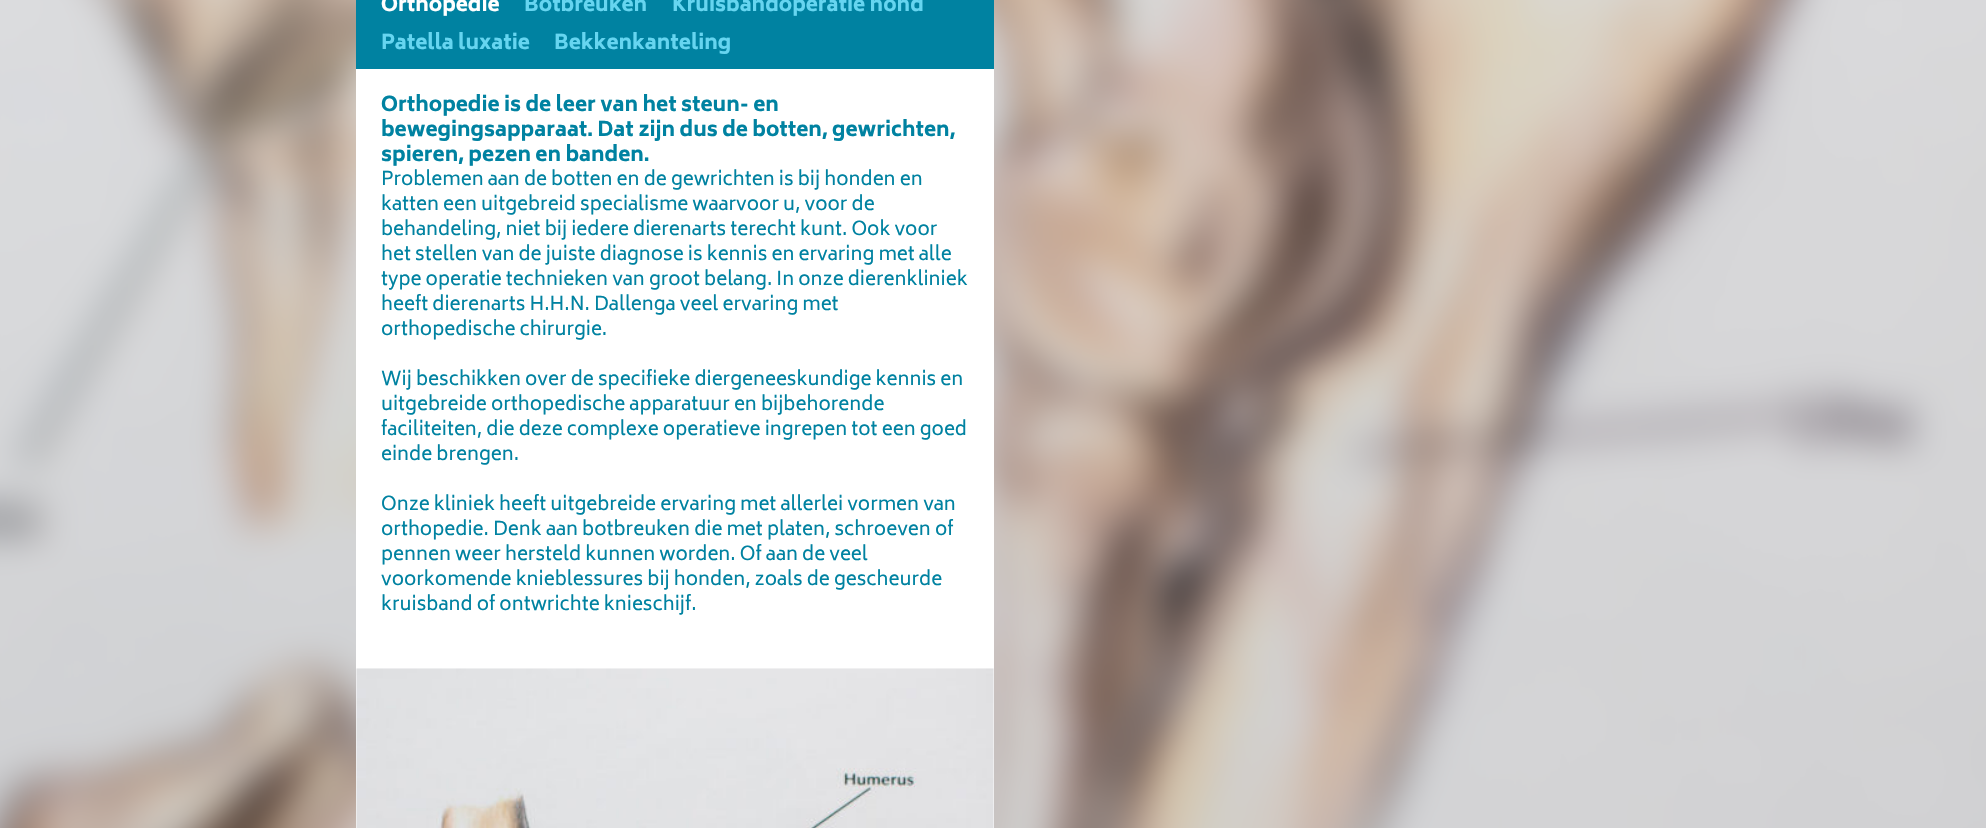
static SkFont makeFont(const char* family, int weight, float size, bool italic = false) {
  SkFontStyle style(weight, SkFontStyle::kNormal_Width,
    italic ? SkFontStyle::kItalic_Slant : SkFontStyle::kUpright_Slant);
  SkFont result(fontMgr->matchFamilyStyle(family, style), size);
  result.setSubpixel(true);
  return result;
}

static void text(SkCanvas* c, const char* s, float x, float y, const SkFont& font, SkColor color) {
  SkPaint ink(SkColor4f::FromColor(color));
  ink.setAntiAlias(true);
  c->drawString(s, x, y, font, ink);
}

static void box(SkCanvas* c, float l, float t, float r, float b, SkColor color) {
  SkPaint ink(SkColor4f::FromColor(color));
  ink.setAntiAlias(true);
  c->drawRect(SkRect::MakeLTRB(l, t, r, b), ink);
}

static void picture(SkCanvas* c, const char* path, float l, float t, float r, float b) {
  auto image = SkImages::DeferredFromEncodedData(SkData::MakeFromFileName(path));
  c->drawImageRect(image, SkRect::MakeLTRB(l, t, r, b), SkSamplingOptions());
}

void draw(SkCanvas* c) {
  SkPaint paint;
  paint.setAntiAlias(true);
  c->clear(0xffffffff);
  picture(c, "img_01.png", 0, 0, 1986, 828);
  box(c, 356, 0, 994, 69, 0xff0082a1);
  SkFont face1 = makeFont("Biryani", 800, 20);
  text(c, "Orthopedie", 381, 11, face1, 0xffffffff);
  text(c, "Botbreuken", 524, 11, face1, 0xff66d5f0);
  text(c, "Kruisbandoperatie hond", 672, 11, face1, 0xff66d5f0);
  text(c, "Patella luxatie", 381, 49, face1, 0xff66d5f0);
  text(c, "Bekkenkanteling", 554, 49, face1, 0xff66d5f0);
  box(c, 356, 69, 994, 828, 0xffffffff);
  text(c, "Orthopedie is de leer van het steun- en", 381, 111, face1, 0xff0082a1);
  text(c, "bewegingsapparaat. Dat zijn dus de botten, gewrichten,", 381, 136, face1, 0xff0082a1);
  text(c, "spieren, pezen en banden.", 381, 161, face1, 0xff0082a1);
  SkFont face2 = makeFont("Biryani", 400, 18.75f);
  text(c, "Problemen aan de botten en de gewrichten is bij honden en", 381, 185, face2, 0xff0082a1);
  text(c, "katten een uitgebreid specialisme waarvoor u, voor de", 381, 210, face2, 0xff0082a1);
  text(c, "behandeling, niet bij iedere dierenarts terecht kunt. Ook voor", 381, 235, face2, 0xff0082a1);
  text(c, "het stellen van de juiste diagnose is kennis en ervaring met alle", 381, 260, face2, 0xff0082a1);
  text(c, "type operatie technieken van groot belang. In onze dierenkliniek", 381, 285, face2, 0xff0082a1);
  text(c, "heeft dierenarts H.H.N. Dallenga veel ervaring met", 381, 310, face2, 0xff0082a1);
  text(c, "orthopedische chirurgie.", 381, 335, face2, 0xff0082a1);
  text(c, "Wij beschikken over de specifieke diergeneeskundige kennis en", 381, 385, face2, 0xff0082a1);
  text(c, "uitgebreide orthopedische apparatuur en bijbehorende", 381, 410, face2, 0xff0082a1);
  text(c, "faciliteiten, die deze complexe operatieve ingrepen tot een goed", 381, 435, face2, 0xff0082a1);
  text(c, "einde brengen.", 381, 460, face2, 0xff0082a1);
  text(c, "Onze kliniek heeft uitgebreide ervaring met allerlei vormen van", 381, 510, face2, 0xff0082a1);
  text(c, "orthopedie. Denk aan botbreuken die met platen, schroeven of", 381, 535, face2, 0xff0082a1);
  text(c, "pennen weer hersteld kunnen worden. Of aan de veel", 381, 560, face2, 0xff0082a1);
  text(c, "voorkomende knieblessures bij honden, zoals de gescheurde", 381, 585, face2, 0xff0082a1);
  text(c, "kruisband of ontwrichte knieschijf.", 381, 610, face2, 0xff0082a1);
  picture(c, "img_02.png", 356, 668, 994, 828);
}
